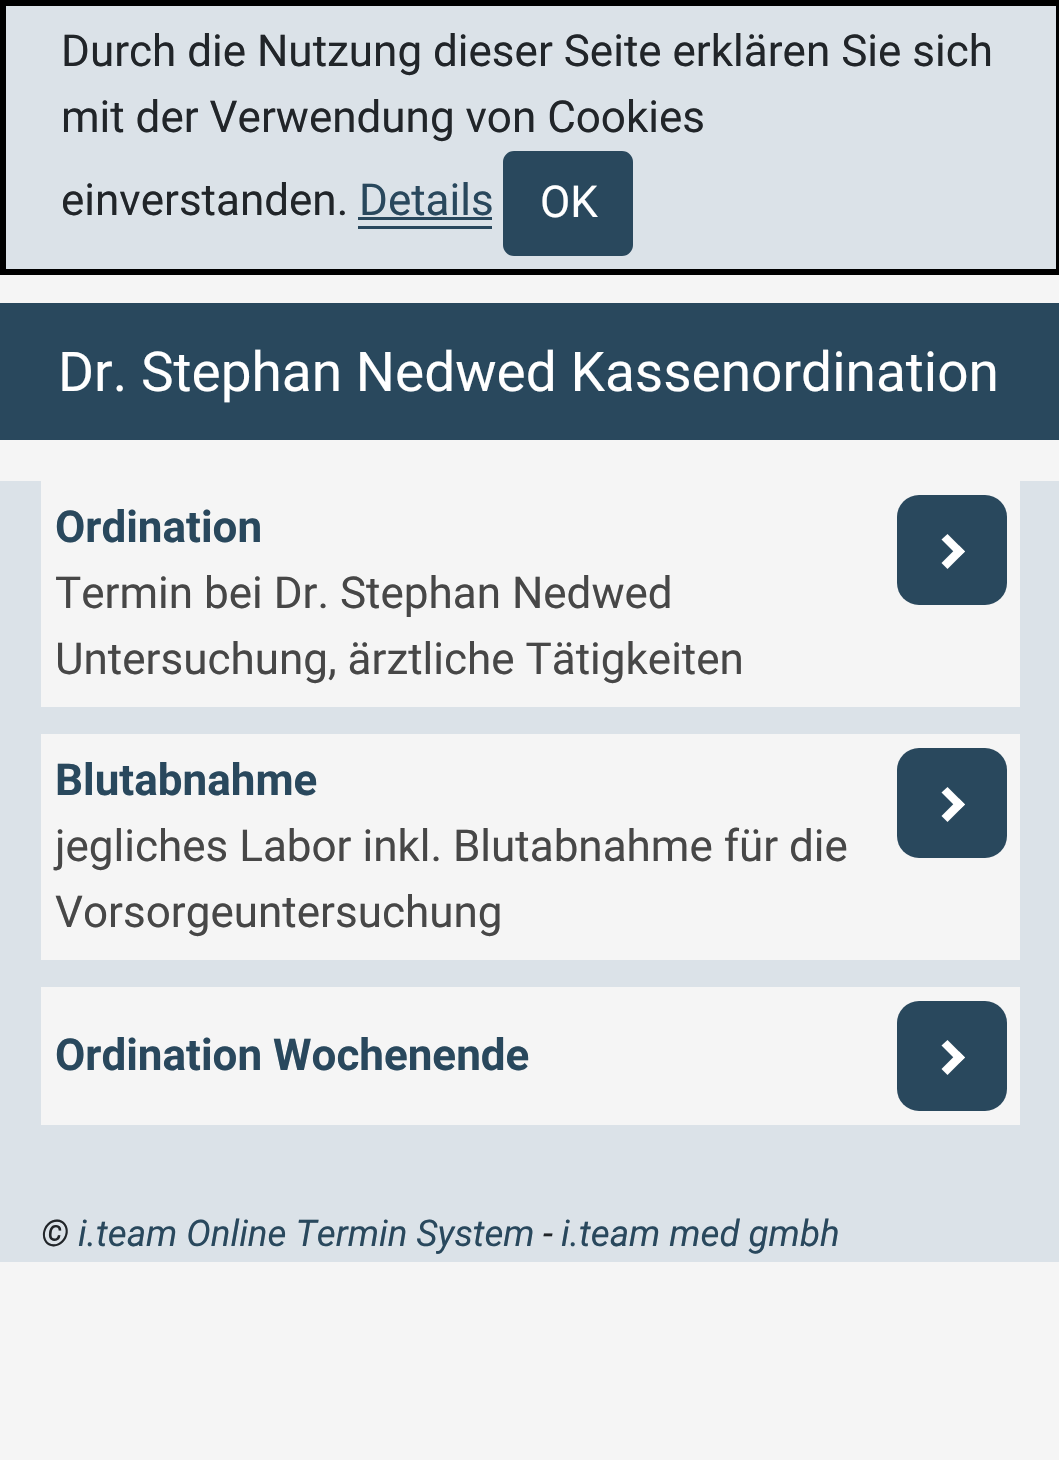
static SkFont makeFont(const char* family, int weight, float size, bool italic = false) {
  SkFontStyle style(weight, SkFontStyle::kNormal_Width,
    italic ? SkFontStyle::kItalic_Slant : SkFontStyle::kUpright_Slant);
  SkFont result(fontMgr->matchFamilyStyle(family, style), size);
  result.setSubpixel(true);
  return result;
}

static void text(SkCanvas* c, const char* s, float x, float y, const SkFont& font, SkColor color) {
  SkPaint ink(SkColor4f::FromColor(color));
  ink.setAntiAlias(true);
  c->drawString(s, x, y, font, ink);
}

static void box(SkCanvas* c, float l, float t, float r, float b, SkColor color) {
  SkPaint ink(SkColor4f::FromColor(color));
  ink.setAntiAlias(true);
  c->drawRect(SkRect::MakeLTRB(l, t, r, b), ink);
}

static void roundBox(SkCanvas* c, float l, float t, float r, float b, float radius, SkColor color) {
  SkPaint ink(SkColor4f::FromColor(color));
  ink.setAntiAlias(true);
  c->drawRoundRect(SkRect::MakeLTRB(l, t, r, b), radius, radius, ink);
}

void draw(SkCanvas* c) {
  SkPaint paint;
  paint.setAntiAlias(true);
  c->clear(0xfff5f5f5);
  paint.setColor(0xffdbe2e8);
  c->drawRect(SkRect::MakeLTRB(3, 3, 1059, 272), paint);
  paint.setStyle(SkPaint::kStroke_Style);
  paint.setStrokeWidth(6);
  paint.setColor(0xff000000);
  c->drawRect(SkRect::MakeLTRB(3, 3, 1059, 272), paint);
  SkFont face1 = makeFont("Roboto", 400, 44);
  text(c, "Durch die Nutzung dieser Seite erklären Sie sich", 61, 66, face1, 0xff212529);
  text(c, "mit der Verwendung von Cookies", 61, 132, face1, 0xff212529);
  text(c, "einverstanden.", 61, 215, face1, 0xff212529);
  text(c, "Details", 359, 215, face1, 0xff29485d);
  box(c, 358, 226, 492, 229, 0xff29485d);
  box(c, 358, 217, 492, 220, 0xff29485d);
  paint.setStyle(SkPaint::kFill_Style);
  paint.setColor(0xff29485d);
  c->drawRoundRect(SkRect::MakeLTRB(504.5f, 152.5f, 631.5f, 254.5f), 9.5f, 9.5f, paint);
  paint.setStyle(SkPaint::kStroke_Style);
  paint.setStrokeWidth(3);
  c->drawRoundRect(SkRect::MakeLTRB(504.5f, 152.5f, 631.5f, 254.5f), 9.5f, 9.5f, paint);
  text(c, "OK", 540, 217, face1, 0xffffffff);
  box(c, 0, 303, 1059, 440, 0xff29485d);
  SkFont face2 = makeFont("Roboto", 400, 55);
  text(c, "Dr. Stephan Nedwed Kassenordination", 58, 391, face2, 0xffffffff);
  box(c, 0, 481, 1059, 1262, 0xffdbe2e8);
  box(c, 41, 481, 1020, 707, 0xfff5f5f5);
  SkFont face3 = makeFont("Roboto", 700, 44);
  text(c, "Ordination", 55, 542, face3, 0xff29485d);
  text(c, "Termin bei Dr. Stephan Nedwed", 55, 608, face1, 0xff474747);
  text(c, "Untersuchung, ärztliche Tätigkeiten", 55, 674, face1, 0xff474747);
  roundBox(c, 897, 495, 1007, 605, 22, 0xff29485d);
  paint.setStyle(SkPaint::kFill_Style);
  paint.setColor(0xffffffff);
  c->drawPath(SkPathBuilder().moveTo(941.5f, 539.5f).lineTo(947.5f, 534).lineTo(965, 551.5f).lineTo(959, 557).close().detach(), paint);
  c->drawPath(SkPathBuilder().moveTo(941.5f, 563).lineTo(959, 545.5f).lineTo(965, 551.5f).lineTo(947.5f, 569).close().detach(), paint);
  box(c, 41, 734, 1020, 960, 0xfff5f5f5);
  text(c, "Blutabnahme", 55, 795, face3, 0xff29485d);
  text(c, "jegliches Labor inkl. Blutabnahme für die", 55, 861, face1, 0xff474747);
  text(c, "Vorsorgeuntersuchung", 55, 927, face1, 0xff474747);
  roundBox(c, 897, 748, 1007, 858, 22, 0xff29485d);
  c->drawPath(SkPathBuilder().moveTo(941.5f, 792.5f).lineTo(947.5f, 787).lineTo(965, 804.5f).lineTo(959, 810).close().detach(), paint);
  c->drawPath(SkPathBuilder().moveTo(941.5f, 816).lineTo(959, 798.5f).lineTo(965, 804.5f).lineTo(947.5f, 822).close().detach(), paint);
  box(c, 41, 987, 1020, 1125, 0xfff5f5f5);
  text(c, "Ordination Wochenende", 55, 1070, face3, 0xff29485d);
  roundBox(c, 897, 1001, 1007, 1111, 22, 0xff29485d);
  c->drawPath(SkPathBuilder().moveTo(941.5f, 1045.5f).lineTo(947.5f, 1040).lineTo(965, 1057.5f).lineTo(959, 1063).close().detach(), paint);
  c->drawPath(SkPathBuilder().moveTo(941.5f, 1069).lineTo(959, 1051.5f).lineTo(965, 1057.5f).lineTo(947.5f, 1075).close().detach(), paint);
  SkFont face4 = makeFont("Roboto", 400, 36.75f, true);
  text(c, "©", 41, 1246, face4, 0xff212529);
  text(c, "i.team Online Termin System", 78, 1246, face4, 0xff29485d);
  text(c, "-", 543, 1246, face4, 0xff212529);
  text(c, "i.team med gmbh", 561, 1246, face4, 0xff29485d);
}
